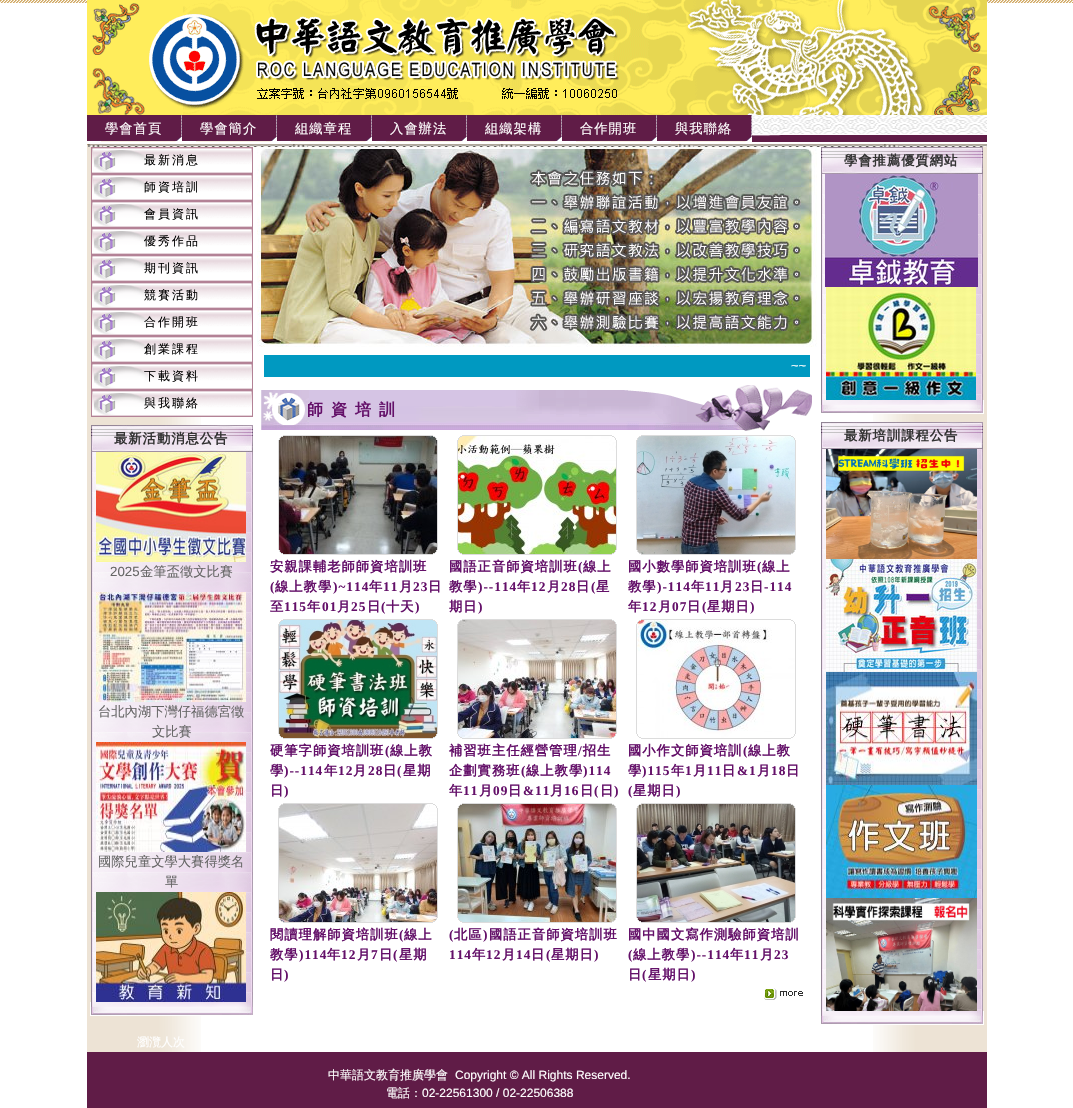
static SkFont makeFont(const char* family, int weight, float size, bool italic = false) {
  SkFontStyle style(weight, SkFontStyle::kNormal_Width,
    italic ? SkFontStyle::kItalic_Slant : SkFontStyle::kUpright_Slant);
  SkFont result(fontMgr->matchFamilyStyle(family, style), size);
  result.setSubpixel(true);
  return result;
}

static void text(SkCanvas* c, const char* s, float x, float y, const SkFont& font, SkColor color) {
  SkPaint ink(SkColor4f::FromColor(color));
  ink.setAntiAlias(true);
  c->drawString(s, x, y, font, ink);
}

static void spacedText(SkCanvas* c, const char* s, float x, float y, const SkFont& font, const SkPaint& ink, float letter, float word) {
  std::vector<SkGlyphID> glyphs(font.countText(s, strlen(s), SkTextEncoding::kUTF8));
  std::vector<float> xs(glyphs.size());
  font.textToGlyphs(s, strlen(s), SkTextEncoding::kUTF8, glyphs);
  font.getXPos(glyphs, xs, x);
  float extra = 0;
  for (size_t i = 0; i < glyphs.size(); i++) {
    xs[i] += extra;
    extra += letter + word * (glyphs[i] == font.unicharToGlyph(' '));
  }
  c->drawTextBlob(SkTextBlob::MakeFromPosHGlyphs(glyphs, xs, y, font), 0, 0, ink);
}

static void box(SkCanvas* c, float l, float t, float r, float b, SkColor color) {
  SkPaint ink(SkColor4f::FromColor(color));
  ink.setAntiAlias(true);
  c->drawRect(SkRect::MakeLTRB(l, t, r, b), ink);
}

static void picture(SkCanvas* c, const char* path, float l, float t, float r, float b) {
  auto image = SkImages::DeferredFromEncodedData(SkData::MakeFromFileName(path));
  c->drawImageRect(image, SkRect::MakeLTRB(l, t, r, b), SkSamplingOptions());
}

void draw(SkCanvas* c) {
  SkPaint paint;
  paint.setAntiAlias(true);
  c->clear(0xffffffff);
  picture(c, "img_01.png", 0, 0, 1073, 3);
  picture(c, "img_02.png", 87, 0, 987, 115);
  picture(c, "img_03.png", 87, 115, 987, 147);
  picture(c, "img_04.png", 87, 115, 182, 142);
  SkFont face1 = makeFont("WenQuanYi Zen Hei", 500, 13.3f);
  paint.setColor(0xffffffff);
  spacedText(c, "學會首頁", 105, 133, face1, paint, 1, 0);
  picture(c, "img_04.png", 182, 115, 277, 142);
  spacedText(c, "學會簡介", 200, 133, face1, paint, 1, 0);
  picture(c, "img_04.png", 277, 115, 372, 142);
  spacedText(c, "組織章程", 295, 133, face1, paint, 1, 0);
  picture(c, "img_04.png", 372, 115, 467, 142);
  spacedText(c, "入會辦法", 390, 133, face1, paint, 1, 0);
  picture(c, "img_04.png", 467, 115, 562, 142);
  spacedText(c, "組織架構", 485, 133, face1, paint, 1, 0);
  picture(c, "img_04.png", 562, 115, 657, 142);
  spacedText(c, "合作開班", 580, 133, face1, paint, 1, 0);
  picture(c, "img_04.png", 657, 115, 752, 142);
  spacedText(c, "與我聯絡", 675, 133, face1, paint, 1, 0);
  picture(c, "img_05.png", 87, 147, 201, 1033);
  picture(c, "img_06.png", 91, 147, 253, 174);
  SkFont face2 = makeFont("WenQuanYi Zen Hei", 500, 12);
  paint.setColor(0xff000000);
  spacedText(c, "最新消息", 144, 164, face2, paint, 2, 0);
  picture(c, "img_06.png", 91, 174, 253, 201);
  spacedText(c, "師資培訓", 144, 191, face2, paint, 2, 0);
  picture(c, "img_06.png", 91, 201, 253, 228);
  spacedText(c, "會員資訊", 144, 218, face2, paint, 2, 0);
  picture(c, "img_06.png", 91, 228, 253, 255);
  spacedText(c, "優秀作品", 144, 245, face2, paint, 2, 0);
  picture(c, "img_06.png", 91, 255, 253, 282);
  spacedText(c, "期刊資訊", 144, 272, face2, paint, 2, 0);
  picture(c, "img_06.png", 91, 282, 253, 309);
  spacedText(c, "競賽活動", 144, 299, face2, paint, 2, 0);
  picture(c, "img_06.png", 91, 309, 253, 336);
  spacedText(c, "合作開班", 144, 326, face2, paint, 2, 0);
  picture(c, "img_06.png", 91, 336, 253, 363);
  spacedText(c, "創業課程", 144, 353, face2, paint, 2, 0);
  picture(c, "img_06.png", 91, 363, 253, 390);
  spacedText(c, "下載資料", 144, 380, face2, paint, 2, 0);
  picture(c, "img_06.png", 91, 390, 253, 417);
  spacedText(c, "與我聯絡", 144, 407, face2, paint, 2, 0);
  picture(c, "img_07.png", 91, 425, 253, 452);
  SkFont face3 = makeFont("WenQuanYi Zen Hei", 700, 13.3f);
  paint.setColor(0xff333333);
  spacedText(c, "最新活動消息公告", 114, 443, face3, paint, 1, 0);
  picture(c, "img_08.png", 91, 452, 253, 1002);
  picture(c, "img_09.png", 96, 452, 246, 562);
  SkFont face4 = makeFont("Liberation Sans", 400, 13.3f);
  text(c, "2025", 110, 576, face4, 0xff666666);
  text(c, "金筆盃徵文比賽", 140, 576, face1, 0xff666666);
  picture(c, "img_10.png", 96, 592, 246, 702);
  text(c, "台北內湖下灣仔福德宮徵", 98, 716, face1, 0xff666666);
  text(c, "文比賽", 152, 736, face1, 0xff666666);
  picture(c, "img_11.png", 96, 742, 246, 852);
  text(c, "國際兒童文學大賽得獎名", 98, 866, face1, 0xff666666);
  text(c, "單", 165, 886, face1, 0xff666666);
  picture(c, "img_12.png", 96, 892, 246, 1002);
  picture(c, "img_13.png", 90, 1002, 253, 1016);
  picture(c, "img_14.png", 873, 147, 987, 1033);
  picture(c, "img_07.png", 821, 147, 983, 174);
  spacedText(c, "學會推薦優質網站", 844, 165, face3, paint, 1, 0);
  picture(c, "img_15.png", 821, 174, 983, 400);
  picture(c, "img_16.png", 825, 174, 978, 287);
  picture(c, "img_17.png", 826, 287, 976, 400);
  picture(c, "img_18.png", 821, 400, 984, 414);
  picture(c, "img_07.png", 821, 422, 983, 449);
  spacedText(c, "最新培訓課程公告", 844, 440, face3, paint, 1, 0);
  picture(c, "img_19.png", 821, 449, 983, 1011);
  picture(c, "img_20.png", 826, 449, 977, 559);
  picture(c, "img_21.png", 826, 559, 977, 672);
  picture(c, "img_22.png", 826, 672, 977, 785);
  picture(c, "img_23.png", 826, 785, 977, 898);
  picture(c, "img_24.png", 826, 898, 977, 1011);
  picture(c, "img_18.png", 821, 1011, 984, 1025);
  picture(c, "img_25.png", 257, 147, 817, 347);
  box(c, 264, 355, 810, 377, 0xff0099c1);
  SkFont face5 = makeFont("Liberation Sans", 400, 13);
  text(c, "~~", 791, 370, face5, 0xffffffff);
  picture(c, "img_26.png", 261, 385, 812, 431);
  SkFont face6 = makeFont("WenQuanYi Zen Hei", 700, 16);
  paint.setColor(0xff641069);
  spacedText(c, "師資培訓", 307, 415, face6, paint, 8, 0);
  picture(c, "img_27.png", 279, 436, 437, 554);
  picture(c, "img_28.png", 278, 435, 438, 555);
  spacedText(c, "安親課輔老師師資培訓班", 270, 571, face3, paint, 1, 0);
  SkFont face7 = makeFont("Liberation Serif", 700, 13.3f);
  spacedText(c, "(", 270, 591, face7, paint, 1, 0);
  spacedText(c, "線上教學", 275, 591, face3, paint, 1, 0);
  spacedText(c, ")~114", 333, 591, face7, paint, 1, 0);
  spacedText(c, "年", 369, 591, face3, paint, 1, 0);
  spacedText(c, "11", 383, 591, face7, paint, 1, 0);
  spacedText(c, "月", 399, 591, face3, paint, 1, 0);
  spacedText(c, "23", 413, 591, face7, paint, 1, 0);
  spacedText(c, "日", 428, 591, face3, paint, 1, 0);
  spacedText(c, "至", 270, 611, face3, paint, 1, 0);
  spacedText(c, "115", 284, 611, face7, paint, 1, 0);
  spacedText(c, "年", 307, 611, face3, paint, 1, 0);
  spacedText(c, "01", 322, 611, face7, paint, 1, 0);
  spacedText(c, "月", 337, 611, face3, paint, 1, 0);
  spacedText(c, "25", 351, 611, face7, paint, 1, 0);
  spacedText(c, "日", 367, 611, face3, paint, 1, 0);
  spacedText(c, "(", 381, 611, face7, paint, 1, 0);
  spacedText(c, "十天", 386, 611, face3, paint, 1, 0);
  spacedText(c, ")", 415, 611, face7, paint, 1, 0);
  picture(c, "img_29.png", 458, 436, 616, 554);
  picture(c, "img_30.png", 457, 435, 617, 555);
  spacedText(c, "國語正音師資培訓班", 449, 571, face3, paint, 1, 0);
  spacedText(c, "(", 578, 571, face7, paint, 1, 0);
  spacedText(c, "線上", 583, 571, face3, paint, 1, 0);
  spacedText(c, "教學", 449, 591, face3, paint, 1, 0);
  spacedText(c, ")--114", 478, 591, face7, paint, 1, 0);
  spacedText(c, "年", 517, 591, face3, paint, 1, 0);
  spacedText(c, "12", 531, 591, face7, paint, 1, 0);
  spacedText(c, "月", 547, 591, face3, paint, 1, 0);
  spacedText(c, "28", 561, 591, face7, paint, 1, 0);
  spacedText(c, "日", 576, 591, face3, paint, 1, 0);
  spacedText(c, "(", 591, 591, face7, paint, 1, 0);
  spacedText(c, "星", 596, 591, face3, paint, 1, 0);
  spacedText(c, "期日", 449, 611, face3, paint, 1, 0);
  spacedText(c, ")", 478, 611, face7, paint, 1, 0);
  picture(c, "img_31.png", 637, 436, 795, 554);
  picture(c, "img_32.png", 636, 435, 796, 555);
  spacedText(c, "國小數學師資培訓班", 628, 571, face3, paint, 1, 0);
  spacedText(c, "(", 757, 571, face7, paint, 1, 0);
  spacedText(c, "線上", 762, 571, face3, paint, 1, 0);
  spacedText(c, "教學", 628, 591, face3, paint, 1, 0);
  spacedText(c, ")-114", 657, 591, face7, paint, 1, 0);
  spacedText(c, "年", 691, 591, face3, paint, 1, 0);
  spacedText(c, "11", 705, 591, face7, paint, 1, 0);
  spacedText(c, "月", 720, 591, face3, paint, 1, 0);
  spacedText(c, "23", 735, 591, face7, paint, 1, 0);
  spacedText(c, "日", 750, 591, face3, paint, 1, 0);
  spacedText(c, "-114", 764, 591, face7, paint, 1, 0);
  spacedText(c, "年", 628, 611, face3, paint, 1, 0);
  spacedText(c, "12", 642, 611, face7, paint, 1, 0);
  spacedText(c, "月", 658, 611, face3, paint, 1, 0);
  spacedText(c, "07", 672, 611, face7, paint, 1, 0);
  spacedText(c, "日", 687, 611, face3, paint, 1, 0);
  spacedText(c, "(", 702, 611, face7, paint, 1, 0);
  spacedText(c, "星期日", 707, 611, face3, paint, 1, 0);
  spacedText(c, ")", 750, 611, face7, paint, 1, 0);
  picture(c, "img_33.png", 279, 620, 437, 738);
  picture(c, "img_34.png", 278, 619, 438, 739);
  spacedText(c, "硬筆字師資培訓班", 270, 755, face3, paint, 1, 0);
  spacedText(c, "(", 385, 755, face7, paint, 1, 0);
  spacedText(c, "線上教", 390, 755, face3, paint, 1, 0);
  spacedText(c, "學", 270, 775, face3, paint, 1, 0);
  spacedText(c, ")--114", 284, 775, face7, paint, 1, 0);
  spacedText(c, "年", 324, 775, face3, paint, 1, 0);
  spacedText(c, "12", 338, 775, face7, paint, 1, 0);
  spacedText(c, "月", 353, 775, face3, paint, 1, 0);
  spacedText(c, "28", 368, 775, face7, paint, 1, 0);
  spacedText(c, "日", 383, 775, face3, paint, 1, 0);
  spacedText(c, "(", 397, 775, face7, paint, 1, 0);
  spacedText(c, "星期", 403, 775, face3, paint, 1, 0);
  spacedText(c, "日", 270, 795, face3, paint, 1, 0);
  spacedText(c, ")", 284, 795, face7, paint, 1, 0);
  picture(c, "img_35.png", 458, 620, 616, 738);
  picture(c, "img_36.png", 457, 619, 617, 739);
  spacedText(c, "補習班主任經營管理 招生", 449, 755, face3, paint, 1, 0);
  spacedText(c, "/", 578, 755, face7, paint, 1, 0);
  spacedText(c, "企劃實務班", 449, 775, face3, paint, 1, 0);
  spacedText(c, "(", 521, 775, face7, paint, 1, 0);
  spacedText(c, "線上教學", 526, 775, face3, paint, 1, 0);
  spacedText(c, ")114", 583, 775, face7, paint, 1, 0);
  spacedText(c, "年", 449, 795, face3, paint, 1, 0);
  spacedText(c, "11", 463, 795, face7, paint, 1, 0);
  spacedText(c, "月", 479, 795, face3, paint, 1, 0);
  spacedText(c, "09", 493, 795, face7, paint, 1, 0);
  spacedText(c, "日", 508, 795, face3, paint, 1, 0);
  spacedText(c, "&11", 523, 795, face7, paint, 1, 0);
  spacedText(c, "月", 550, 795, face3, paint, 1, 0);
  spacedText(c, "16", 564, 795, face7, paint, 1, 0);
  spacedText(c, "日", 580, 795, face3, paint, 1, 0);
  spacedText(c, "(", 594, 795, face7, paint, 1, 0);
  spacedText(c, "日", 600, 795, face3, paint, 1, 0);
  spacedText(c, ")", 614, 795, face7, paint, 1, 0);
  picture(c, "img_37.png", 637, 620, 795, 738);
  picture(c, "img_38.png", 636, 619, 796, 739);
  spacedText(c, "國小作文師資培訓", 628, 755, face3, paint, 1, 0);
  spacedText(c, "(", 743, 755, face7, paint, 1, 0);
  spacedText(c, "線上教", 748, 755, face3, paint, 1, 0);
  spacedText(c, "學", 628, 775, face3, paint, 1, 0);
  spacedText(c, ")115", 642, 775, face7, paint, 1, 0);
  spacedText(c, "年", 671, 775, face3, paint, 1, 0);
  spacedText(c, "1", 685, 775, face7, paint, 1, 0);
  spacedText(c, "月", 693, 775, face3, paint, 1, 0);
  spacedText(c, "11", 707, 775, face7, paint, 1, 0);
  spacedText(c, "日", 722, 775, face3, paint, 1, 0);
  spacedText(c, "&1", 737, 775, face7, paint, 1, 0);
  spacedText(c, "月", 757, 775, face3, paint, 1, 0);
  spacedText(c, "18", 771, 775, face7, paint, 1, 0);
  spacedText(c, "日", 786, 775, face3, paint, 1, 0);
  spacedText(c, "(", 628, 795, face7, paint, 1, 0);
  spacedText(c, "星期日", 633, 795, face3, paint, 1, 0);
  spacedText(c, ")", 676, 795, face7, paint, 1, 0);
  picture(c, "img_39.png", 279, 804, 437, 922);
  picture(c, "img_40.png", 278, 803, 438, 923);
  spacedText(c, "閱讀理解師資培訓班", 270, 939, face3, paint, 1, 0);
  spacedText(c, "(", 399, 939, face7, paint, 1, 0);
  spacedText(c, "線上", 404, 939, face3, paint, 1, 0);
  spacedText(c, "教學", 270, 959, face3, paint, 1, 0);
  spacedText(c, ")114", 299, 959, face7, paint, 1, 0);
  spacedText(c, "年", 327, 959, face3, paint, 1, 0);
  spacedText(c, "12", 341, 959, face7, paint, 1, 0);
  spacedText(c, "月", 357, 959, face3, paint, 1, 0);
  spacedText(c, "7", 371, 959, face7, paint, 1, 0);
  spacedText(c, "日", 379, 959, face3, paint, 1, 0);
  spacedText(c, "(", 393, 959, face7, paint, 1, 0);
  spacedText(c, "星期", 399, 959, face3, paint, 1, 0);
  spacedText(c, "日", 270, 979, face3, paint, 1, 0);
  spacedText(c, ")", 284, 979, face7, paint, 1, 0);
  picture(c, "img_41.png", 458, 804, 616, 922);
  picture(c, "img_42.png", 457, 803, 617, 923);
  spacedText(c, "(", 449, 939, face7, paint, 1, 0);
  spacedText(c, "北區", 454, 939, face3, paint, 1, 0);
  spacedText(c, ")", 483, 939, face7, paint, 1, 0);
  spacedText(c, "國語正音師資培訓班", 489, 939, face3, paint, 1, 0);
  spacedText(c, "114", 449, 959, face7, paint, 1, 0);
  spacedText(c, "年", 472, 959, face3, paint, 1, 0);
  spacedText(c, "12", 486, 959, face7, paint, 1, 0);
  spacedText(c, "月", 502, 959, face3, paint, 1, 0);
  spacedText(c, "14", 516, 959, face7, paint, 1, 0);
  spacedText(c, "日", 531, 959, face3, paint, 1, 0);
  spacedText(c, "(", 546, 959, face7, paint, 1, 0);
  spacedText(c, "星期日", 551, 959, face3, paint, 1, 0);
  spacedText(c, ")", 594, 959, face7, paint, 1, 0);
  picture(c, "img_43.png", 637, 804, 795, 922);
  picture(c, "img_44.png", 636, 803, 796, 923);
  spacedText(c, "國中國文寫作測驗師資培訓", 628, 939, face3, paint, 1, 0);
  spacedText(c, "(", 628, 959, face7, paint, 1, 0);
  spacedText(c, "線上教學", 633, 959, face3, paint, 1, 0);
  spacedText(c, ")--114", 691, 959, face7, paint, 1, 0);
  spacedText(c, "年", 730, 959, face3, paint, 1, 0);
  spacedText(c, "11", 744, 959, face7, paint, 1, 0);
  spacedText(c, "月", 760, 959, face3, paint, 1, 0);
  spacedText(c, "23", 774, 959, face7, paint, 1, 0);
  spacedText(c, "日", 628, 979, face3, paint, 1, 0);
  spacedText(c, "(", 642, 979, face7, paint, 1, 0);
  spacedText(c, "星期日", 648, 979, face3, paint, 1, 0);
  spacedText(c, ")", 691, 979, face7, paint, 1, 0);
  picture(c, "img_45.png", 764, 988, 803, 1000);
  picture(c, "img_46.png", 87, 1033, 201, 1052);
  text(c, "瀏灠人次", 137, 1046, face2, 0xffffffff);
  picture(c, "img_47.png", 873, 1033, 987, 1052);
  box(c, 87, 1052, 987, 1108, 0xff601c47);
  text(c, "中華語文教育推廣學會", 328, 1079, face2, 0xffffffff);
  SkFont face8 = makeFont("Liberation Sans", 400, 12);
  text(c, "Copyright © All Rights Reserved.", 455, 1079, face8, 0xffffffff);
  text(c, "電話：", 386, 1097, face2, 0xffffffff);
  text(c, "02-22561300 / 02-22506388", 422, 1097, face8, 0xffffffff);
}
